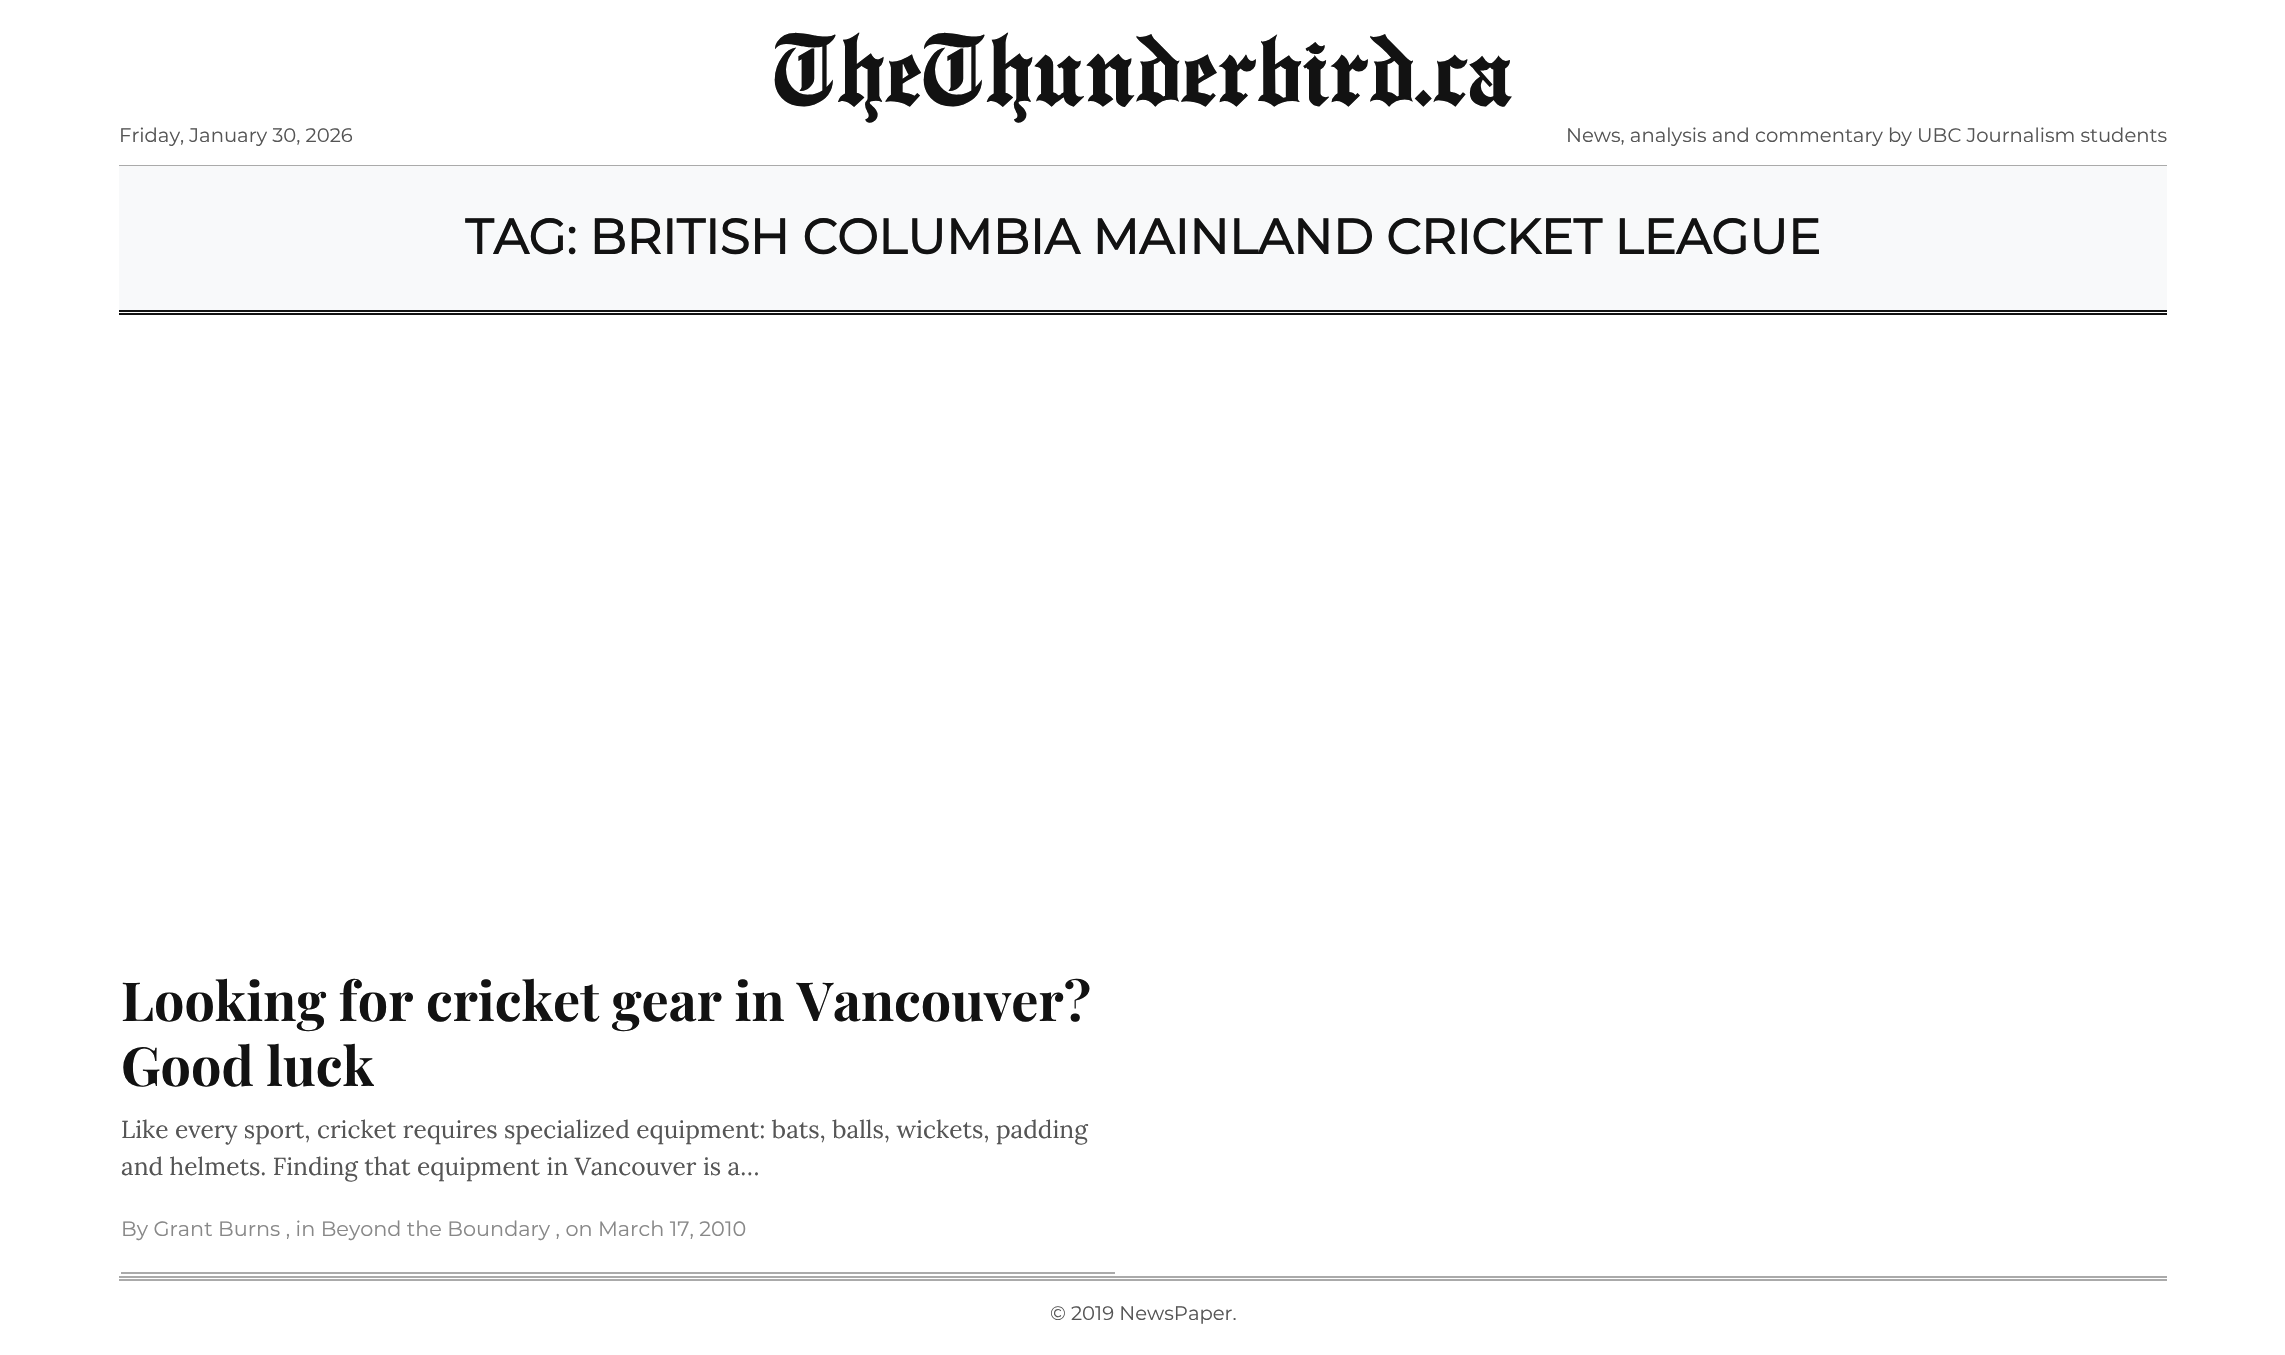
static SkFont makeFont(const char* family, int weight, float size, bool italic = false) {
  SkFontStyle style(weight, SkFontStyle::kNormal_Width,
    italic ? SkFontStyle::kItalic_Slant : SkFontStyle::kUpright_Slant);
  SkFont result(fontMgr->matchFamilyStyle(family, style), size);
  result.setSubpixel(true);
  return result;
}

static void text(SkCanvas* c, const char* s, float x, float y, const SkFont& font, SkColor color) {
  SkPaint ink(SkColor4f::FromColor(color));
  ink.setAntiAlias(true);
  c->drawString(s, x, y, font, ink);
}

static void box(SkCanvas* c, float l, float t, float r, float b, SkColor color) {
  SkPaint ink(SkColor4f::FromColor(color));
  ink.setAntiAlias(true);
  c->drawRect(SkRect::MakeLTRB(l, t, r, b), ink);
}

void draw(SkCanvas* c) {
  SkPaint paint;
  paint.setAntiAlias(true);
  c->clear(0xffffffff);
  SkFont face1 = makeFont("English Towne", 500, 112);
  text(c, "TheThunderbird.ca", 773, 102, face1, 0xff121212);
  SkFont face2 = makeFont("Montserrat", 100, 19.6f);
  text(c, "Friday, January 30, 2026", 119, 142, face2, 0xff555555);
  text(c, "News, analysis and commentary by UBC Journalism students", 1566, 142, face2, 0xff555555);
  box(c, 119, 165, 2167, 166, 0xffaaaaaa);
  box(c, 119, 166, 2167, 310, 0xfff8f9fa);
  SkFont face3 = makeFont("Montserrat", 700, 49);
  text(c, "TAG: BRITISH COLUMBIA MAINLAND CRICKET LEAGUE", 465, 254, face3, 0xff121212);
  box(c, 119, 310, 2167, 312, 0xff121212);
  box(c, 119, 313, 2167, 315, 0xff121212);
  SkFont face4 = makeFont("Playfair Display", 700, 53.9f);
  text(c, "Looking for cricket gear in Vancouver?", 121, 1021, face4, 0xff121212);
  text(c, "Good luck", 121, 1086, face4, 0xff121212);
  SkFont face5 = makeFont("Lora", 400, 24.5f);
  text(c, "Like every sport, cricket requires specialized equipment: bats, balls, wickets, padding", 121, 1138, face5, 0xff555555);
  text(c, "and helmets. Finding that equipment in Vancouver is a…", 121, 1175, face5, 0xff555555);
  SkFont face6 = makeFont("Montserrat", 100, 20.8f);
  text(c, "By Grant Burns , in Beyond the Boundary , on March 17, 2010", 121, 1236, face6, 0xff888888);
  box(c, 121, 1272, 1115, 1274, 0xffaaaaaa);
  box(c, 119, 1276, 2167, 1278, 0xffaaaaaa);
  box(c, 119, 1279, 2167, 1281, 0xffaaaaaa);
  text(c, "© 2019 NewsPaper.", 1050, 1320, face2, 0xff555555);
}
